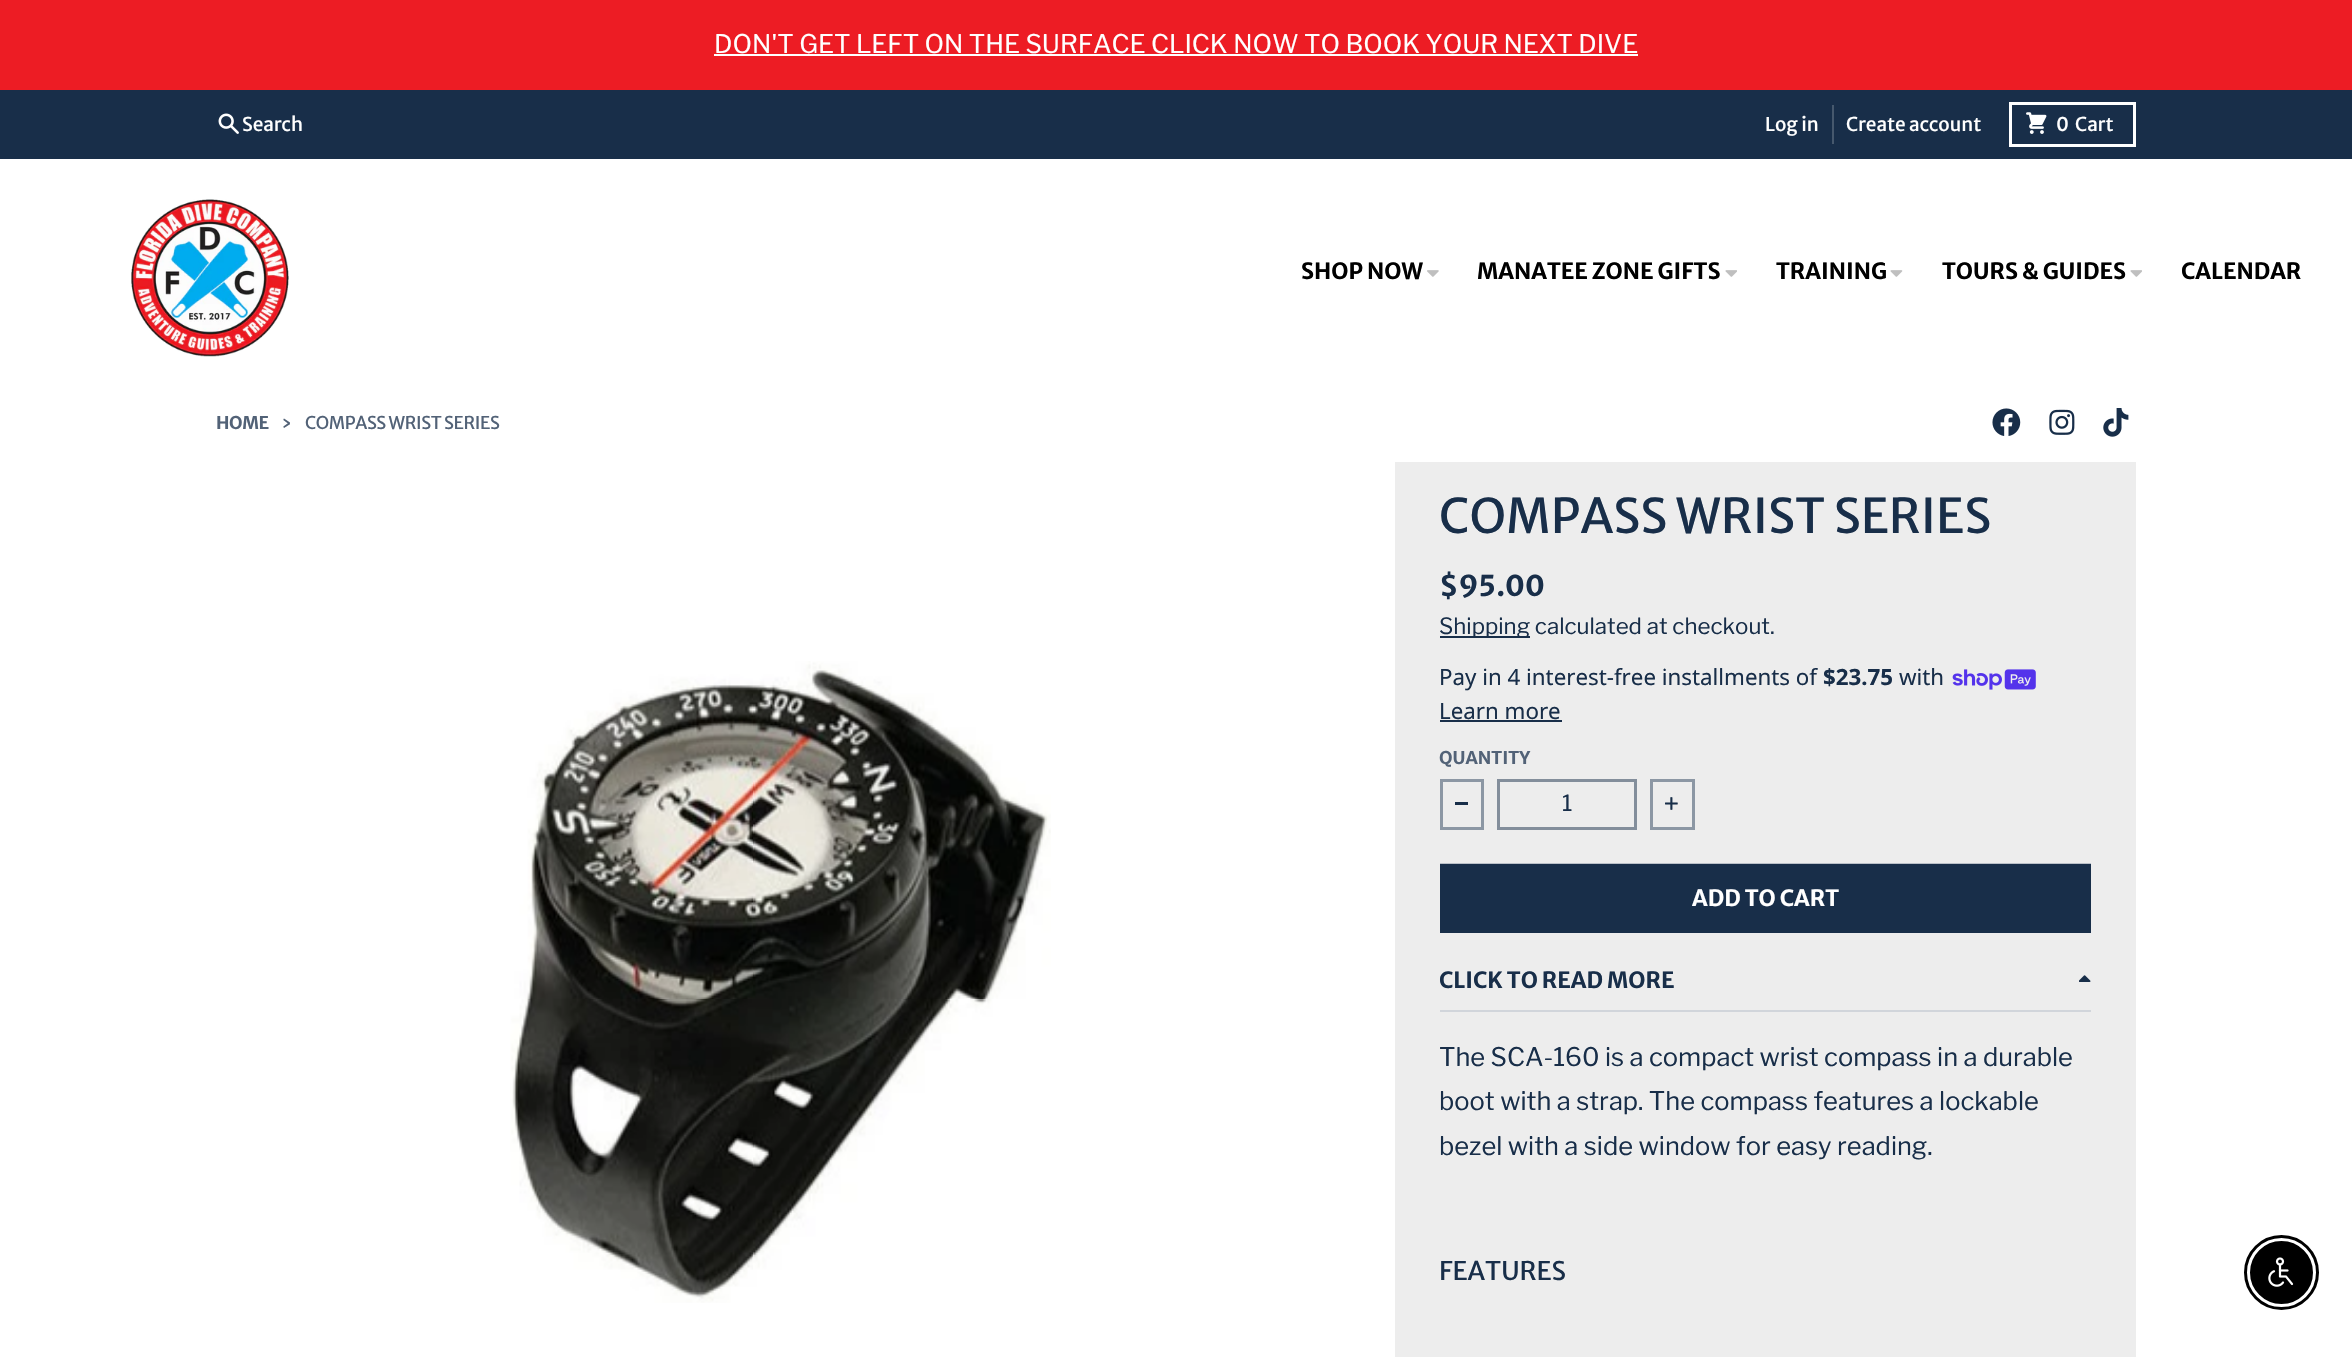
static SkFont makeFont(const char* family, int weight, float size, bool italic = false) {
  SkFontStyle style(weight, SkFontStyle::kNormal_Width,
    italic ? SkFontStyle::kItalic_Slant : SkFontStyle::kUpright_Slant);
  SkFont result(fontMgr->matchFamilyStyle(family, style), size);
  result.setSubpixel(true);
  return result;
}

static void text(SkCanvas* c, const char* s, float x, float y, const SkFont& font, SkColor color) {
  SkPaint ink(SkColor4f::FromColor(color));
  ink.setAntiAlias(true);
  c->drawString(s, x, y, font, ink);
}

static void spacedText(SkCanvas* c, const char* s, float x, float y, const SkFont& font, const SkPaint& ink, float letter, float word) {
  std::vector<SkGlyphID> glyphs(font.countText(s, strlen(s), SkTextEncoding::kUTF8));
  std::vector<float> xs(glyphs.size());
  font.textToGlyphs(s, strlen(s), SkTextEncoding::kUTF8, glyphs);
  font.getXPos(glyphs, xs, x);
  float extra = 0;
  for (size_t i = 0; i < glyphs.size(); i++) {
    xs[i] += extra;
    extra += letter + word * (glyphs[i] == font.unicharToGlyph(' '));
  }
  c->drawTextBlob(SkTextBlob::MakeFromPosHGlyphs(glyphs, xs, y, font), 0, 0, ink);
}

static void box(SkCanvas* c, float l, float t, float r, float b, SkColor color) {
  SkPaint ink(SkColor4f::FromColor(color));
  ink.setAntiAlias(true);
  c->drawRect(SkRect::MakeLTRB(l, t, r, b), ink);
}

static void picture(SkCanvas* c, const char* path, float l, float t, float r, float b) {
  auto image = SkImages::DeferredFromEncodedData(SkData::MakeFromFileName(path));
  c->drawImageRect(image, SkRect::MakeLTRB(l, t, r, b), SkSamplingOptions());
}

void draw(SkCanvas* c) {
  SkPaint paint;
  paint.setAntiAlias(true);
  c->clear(0xff182e49);
  box(c, 0, 0, 2352, 90, 0xffed1c24);
  SkFont face1 = makeFont("Libre Franklin", 400, 25.5f);
  text(c, "DON'T GET LEFT ON THE SURFACE CLICK NOW TO BOOK YOUR NEXT DIVE", 714, 53, face1, 0xffffffff);
  box(c, 714, 54, 1638, 56, 0xffffffff);
  picture(c, "img_01.png", 218, 113, 239, 134);
  SkFont face2 = makeFont("Merriweather Sans", 400, 19);
  text(c, "Search", 242, 131, face2, 0xffffffff);
  text(c, "Log in", 1765, 131, face2, 0xffffffff);
  box(c, 1832, 105, 1834, 144, 0xff46586d);
  text(c, "Create account", 1846, 131, face2, 0xffffffff);
  paint.setStyle(SkPaint::kStroke_Style);
  paint.setStrokeWidth(3);
  paint.setColor(0xffffffff);
  c->drawRect(SkRect::MakeLTRB(2010.5f, 103.5f, 2134.5f, 145.5f), paint);
  picture(c, "img_02.png", 2026, 112, 2047, 134);
  text(c, "0", 2056, 131, face2, 0xffffffff);
  text(c, "Cart", 2075, 131, face2, 0xffffffff);
  box(c, 0, 159, 2352, 1357, 0xffffffff);
  picture(c, "img_03.png", 131, 199, 289, 357);
  SkFont face3 = makeFont("Merriweather Sans", 700, 22.3f);
  text(c, "SHOP NOW", 1301, 279, face3, 0xff000000);
  picture(c, "img_04.png", 1427, 270, 1439, 277);
  text(c, "MANATEE ZONE GIFTS", 1477, 279, face3, 0xff000000);
  picture(c, "img_05.png", 1725, 270, 1737, 277);
  text(c, "TRAINING", 1776, 279, face3, 0xff000000);
  picture(c, "img_06.png", 1890, 270, 1903, 277);
  text(c, "TOURS & GUIDES", 1942, 279, face3, 0xff000000);
  picture(c, "img_05.png", 2130, 270, 2142, 277);
  text(c, "CALENDAR", 2181, 279, face3, 0xff000000);
  SkFont face4 = makeFont("Merriweather Sans", 700, 17.5f);
  paint.setStyle(SkPaint::kFill_Style);
  paint.setColor(0xff526277);
  spacedText(c, "HOME", 216, 429, face4, paint, -0.4f, 0);
  spacedText(c, "›", 281, 429, face2, paint, -0.4f, 0);
  SkFont face5 = makeFont("Merriweather Sans", 400, 17.5f);
  spacedText(c, "COMPASS WRIST SERIES", 305, 429, face5, paint, -0.4f, 0);
  picture(c, "img_07.png", 1992, 408, 2021, 436);
  picture(c, "img_08.png", 2049, 409, 2075, 435);
  picture(c, "img_09.png", 2103, 408, 2129, 437);
  picture(c, "img_10.png", 510, 661, 1051, 1303);
  box(c, 1395, 462, 2136, 1357, 0xffededed);
  SkFont face6 = makeFont("Merriweather Sans", 400, 47.75f);
  text(c, "COMPASS WRIST SERIES", 1439, 533, face6, 0xff182e49);
  SkFont face7 = makeFont("Merriweather Sans", 700, 28.5f);
  text(c, "$95.00", 1439, 596, face7, 0xff182e49);
  box(c, 1440, 636, 1530, 638, 0xff182e49);
  SkFont face8 = makeFont("Libre Franklin", 400, 22.3f);
  text(c, "Shipping calculated at checkout.", 1439, 634, face8, 0xff182e49);
  SkFont face9 = makeFont("Noto Sans", 400, 22.3f);
  text(c, "Pay in 4 interest-free installments of", 1439, 685, face9, 0xff182e49);
  SkFont face10 = makeFont("Noto Sans", 700, 22.3f);
  text(c, "$23.75", 1823, 685, face10, 0xff182e49);
  text(c, "with", 1899, 685, face9, 0xff182e49);
  picture(c, "img_11.png", 1952, 669, 2036, 690);
  text(c, "Learn more", 1439, 719, face9, 0xff182e49);
  box(c, 1440, 720, 1562, 722, 0xff182e49);
  text(c, "QUANTITY", 1439, 764, face4, 0xff526277);
  paint.setStyle(SkPaint::kStroke_Style);
  paint.setColor(0xff8c97a4);
  c->drawRect(SkRect::MakeLTRB(1441.5f, 780.5f, 1482.5f, 828.5f), paint);
  box(c, 1455, 802, 1468, 805, 0xff182e49);
  paint.setColor(0xff838e9b);
  c->drawRect(SkRect::MakeLTRB(1498.5f, 780.5f, 1635.5f, 828.5f), paint);
  text(c, "1", 1562, 811, face8, 0xff182e49);
  paint.setColor(0xff8c97a4);
  c->drawRect(SkRect::MakeLTRB(1651.5f, 780.5f, 1693.5f, 828.5f), paint);
  picture(c, "img_12.png", 1665, 797, 1678, 810);
  box(c, 1440, 863, 2091, 864, 0xffbac0c8);
  box(c, 1440, 864, 2091, 933, 0xff182e49);
  text(c, "ADD TO CART", 1692, 906, face3, 0xffffffff);
  box(c, 1440, 1010, 2091, 1012, 0xffd1d5db);
  text(c, "CLICK TO READ MORE", 1439, 988, face3, 0xff182e49);
  picture(c, "img_13.png", 2079, 975, 2091, 982);
  text(c, "The SCA-160 is a compact wrist compass in a durable", 1439, 1066, face1, 0xff182e49);
  text(c, "boot with a strap. The compass features a lockable", 1439, 1110, face1, 0xff182e49);
  text(c, "bezel with a side window for easy reading.", 1439, 1155, face1, 0xff182e49);
  SkFont face11 = makeFont("Merriweather Sans", 400, 25.5f);
  text(c, "FEATURES", 1439, 1280, face11, 0xff182e49);
  paint.setColor(0xff000000);
  c->drawCircle(2281.5f, 1272.5f, 36, paint);
  paint.setStyle(SkPaint::kFill_Style);
  c->drawCircle(2281.5f, 1272.5f, 30.5f, paint);
  paint.setStyle(SkPaint::kStroke_Style);
  paint.setStrokeWidth(2);
  c->drawCircle(2281.5f, 1272.5f, 30.5f, paint);
  picture(c, "img_14.png", 2268, 1257, 2294, 1287);
}
